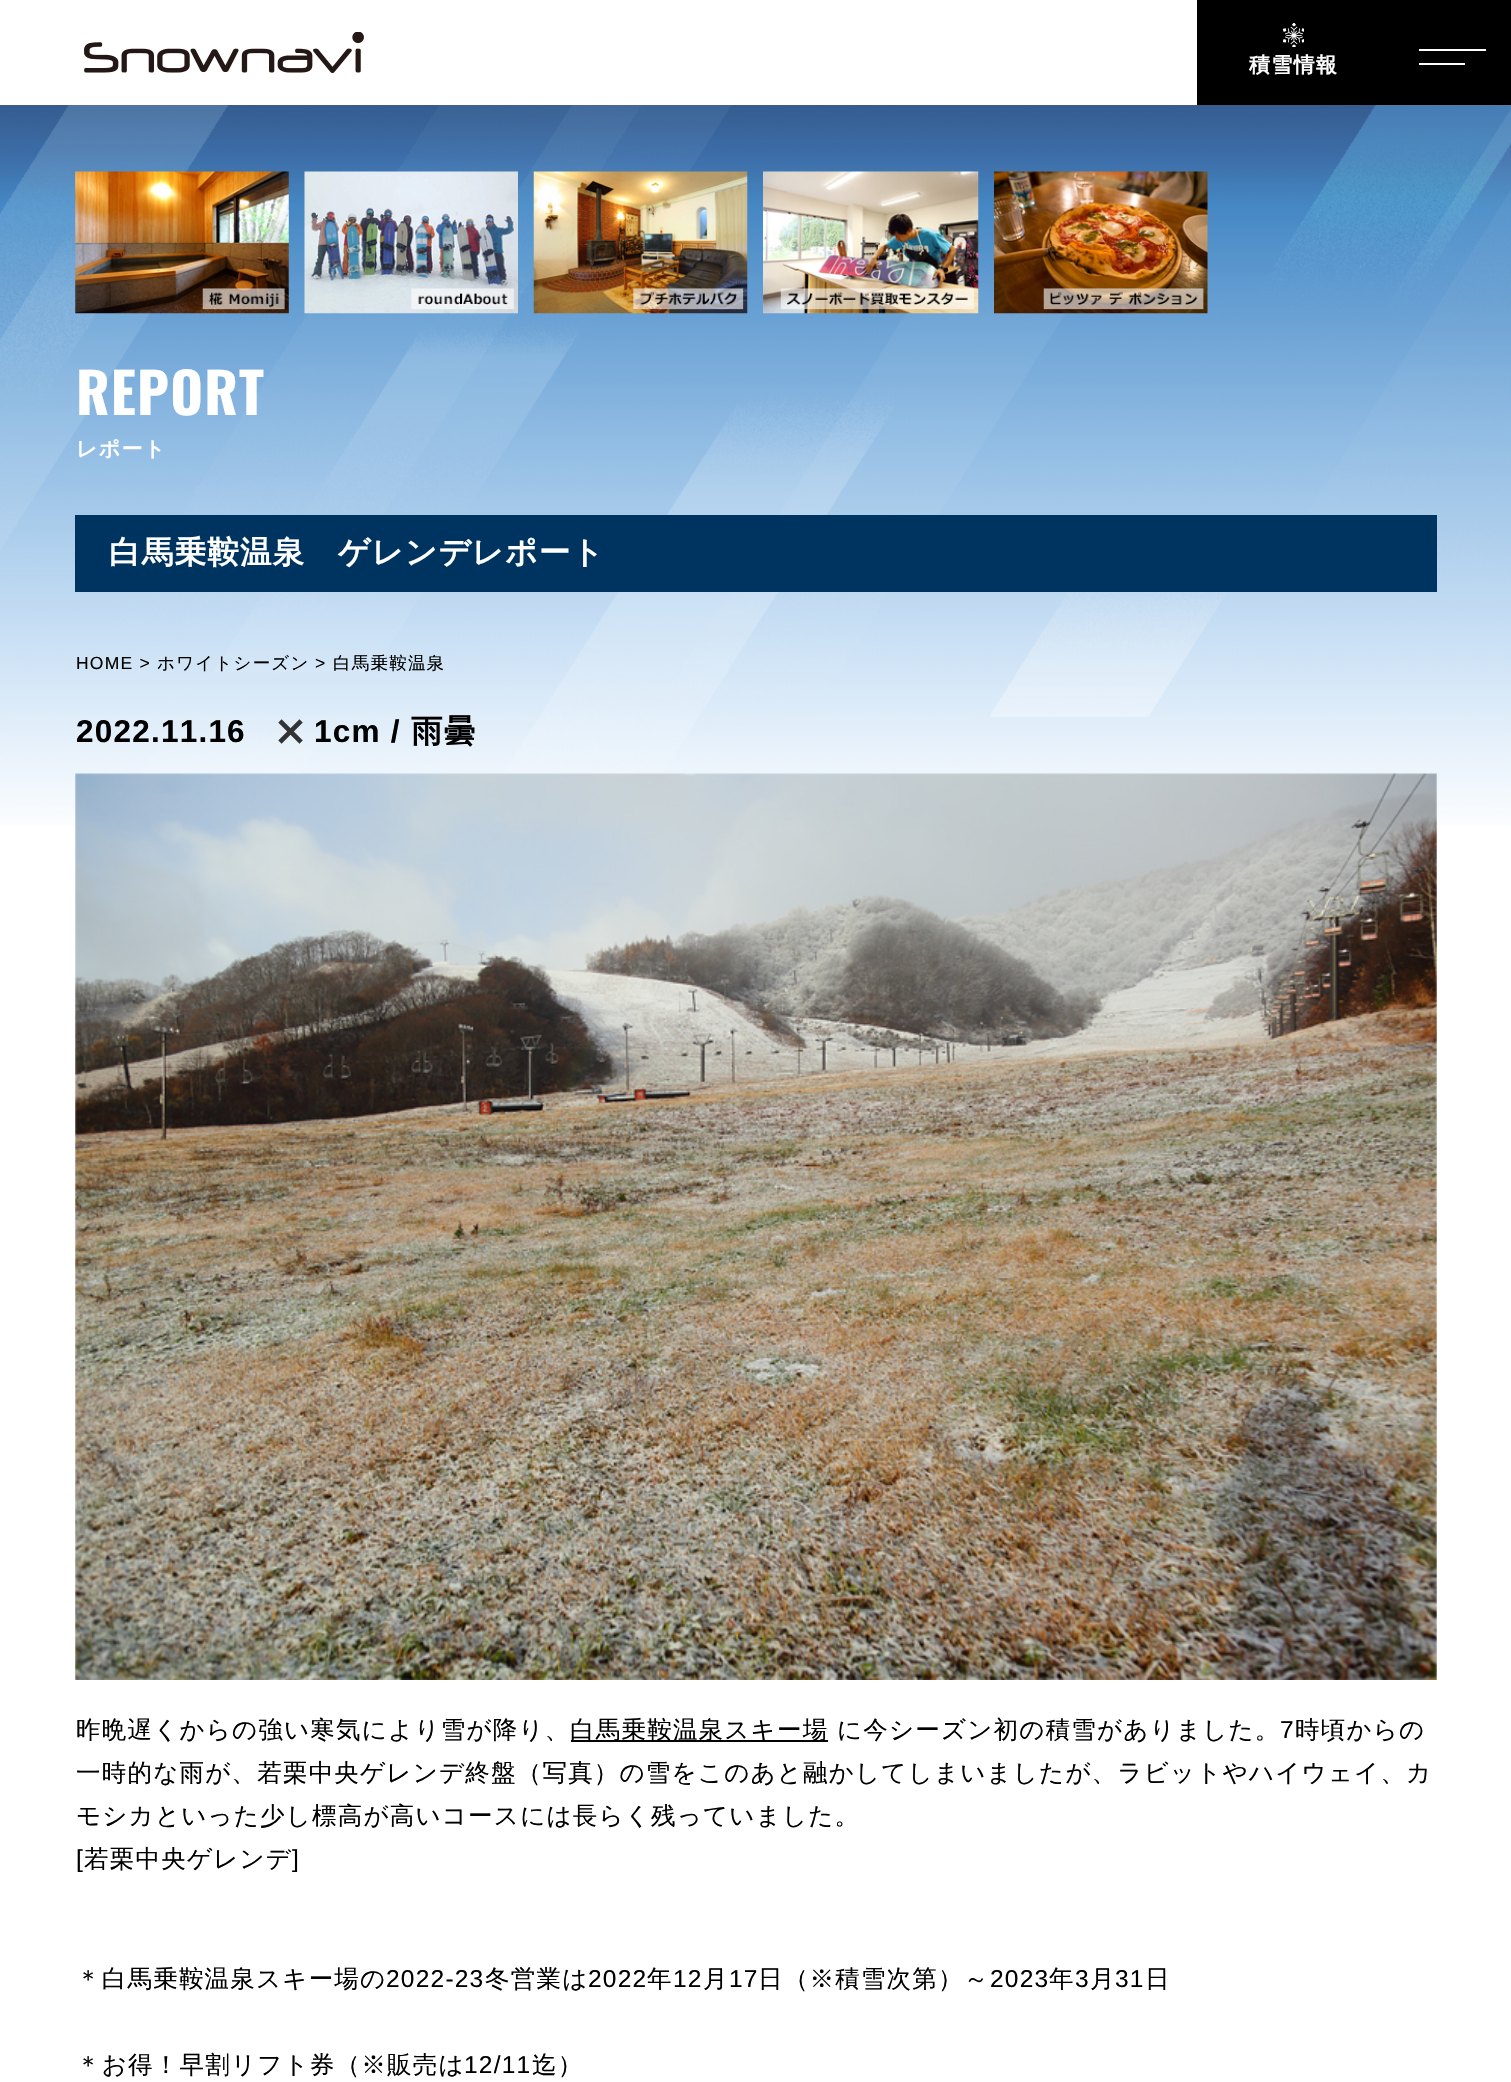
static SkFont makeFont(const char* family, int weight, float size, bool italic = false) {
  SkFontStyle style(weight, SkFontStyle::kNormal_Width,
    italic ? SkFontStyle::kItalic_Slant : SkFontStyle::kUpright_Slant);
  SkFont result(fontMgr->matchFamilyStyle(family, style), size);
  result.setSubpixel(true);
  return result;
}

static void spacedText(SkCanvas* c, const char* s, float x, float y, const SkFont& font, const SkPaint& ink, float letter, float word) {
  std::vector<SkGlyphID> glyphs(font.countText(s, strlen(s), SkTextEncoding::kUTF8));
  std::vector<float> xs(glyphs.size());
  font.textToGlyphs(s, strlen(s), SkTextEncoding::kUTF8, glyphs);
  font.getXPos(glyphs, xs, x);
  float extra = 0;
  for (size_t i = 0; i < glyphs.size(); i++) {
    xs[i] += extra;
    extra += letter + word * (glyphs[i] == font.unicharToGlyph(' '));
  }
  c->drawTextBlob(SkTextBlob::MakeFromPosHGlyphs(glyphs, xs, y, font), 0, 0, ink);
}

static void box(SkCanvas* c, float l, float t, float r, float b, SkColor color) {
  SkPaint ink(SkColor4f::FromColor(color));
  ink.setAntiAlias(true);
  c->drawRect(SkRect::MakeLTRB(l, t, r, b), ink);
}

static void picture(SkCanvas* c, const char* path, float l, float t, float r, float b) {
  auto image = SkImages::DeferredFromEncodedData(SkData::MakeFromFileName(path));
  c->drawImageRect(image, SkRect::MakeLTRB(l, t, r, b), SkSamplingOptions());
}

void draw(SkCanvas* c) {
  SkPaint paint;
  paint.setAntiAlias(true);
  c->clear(0xffffffff);
  picture(c, "img_01.png", 84, 32, 364, 73);
  box(c, 1197, 0, 1511, 105, 0xff000000);
  picture(c, "img_02.png", 1283, 23, 1304, 47);
  SkFont face1 = makeFont("WenQuanYi Zen Hei", 700, 21);
  paint.setColor(0xffffffff);
  spacedText(c, "積雪情報", 1249, 72, face1, paint, 1.22f, 0);
  box(c, 1419, 49, 1486, 51, 0xffffffff);
  box(c, 1419, 63, 1465, 65, 0xffffffff);
  picture(c, "img_03.png", 0, 105, 1511, 826);
  picture(c, "img_04.png", 75, 171, 289, 314);
  picture(c, "img_05.png", 304, 171, 518, 314);
  picture(c, "img_06.png", 533, 171, 748, 314);
  picture(c, "img_07.png", 763, 171, 979, 314);
  picture(c, "img_08.png", 994, 171, 1208, 314);
  SkFont face2 = makeFont("Oswald", 700, 56);
  spacedText(c, "REPORT", 76, 415, face2, paint, 1.22f, 0);
  spacedText(c, "レポート", 76, 456, face1, paint, 1.22f, 0);
  box(c, 75, 515, 1437, 592, 0xff003460);
  SkFont face3 = makeFont("WenQuanYi Zen Hei", 700, 31.5f);
  spacedText(c, "白馬乗鞍温泉　ゲレンデレポート", 109, 563, face3, paint, 1.22f, 0);
  SkFont face4 = makeFont("Liberation Sans", 400, 17.5f);
  paint.setColor(0xff000000);
  spacedText(c, "HOME >", 76, 669, face4, paint, 1.22f, 0);
  SkFont face5 = makeFont("WenQuanYi Zen Hei", 500, 17.5f);
  spacedText(c, "ホワイトシーズン", 157, 669, face5, paint, 1.22f, 0);
  spacedText(c, ">", 315, 669, face4, paint, 1.22f, 0);
  spacedText(c, "白馬乗鞍温泉", 333, 669, face5, paint, 1.22f, 0);
  SkFont face6 = makeFont("Liberation Sans", 700, 31.5f);
  spacedText(c, "2022.11.16", 76, 742, face6, paint, 1.22f, 0);
  picture(c, "img_09.png", 278, 719, 303, 744);
  spacedText(c, "1cm /", 314, 742, face6, paint, 1.22f, 0);
  spacedText(c, "雨曇", 411, 742, face3, paint, 1.22f, 0);
  picture(c, "img_10.png", 75, 773, 1437, 1680);
  SkFont face7 = makeFont("WenQuanYi Zen Hei", 500, 24.5f);
  spacedText(c, "昨晩遅くからの強い寒気により雪が降り、", 76, 1738, face7, paint, 1.22f, 0);
  box(c, 571, 1740, 828, 1742, 0xff000000);
  spacedText(c, "白馬乗鞍温泉スキー場", 570, 1738, face7, paint, 1.22f, 0);
  spacedText(c, "に今シーズン初の積雪がありました。", 837, 1738, face7, paint, 1.22f, 0);
  SkFont face8 = makeFont("Liberation Sans", 400, 24.5f);
  spacedText(c, "7", 1280, 1738, face8, paint, 1.22f, 0);
  spacedText(c, "時頃からの", 1295, 1738, face7, paint, 1.22f, 0);
  spacedText(c, "一時的な雨が、若栗中央ゲレンデ終盤（写真）の雪をこのあと融かしてしまいましたが、ラビットやハイウェイ、カ", 76, 1781, face7, paint, 1.22f, 0);
  spacedText(c, "モシカといった少し標高が高いコースには長らく残っていました。", 76, 1824, face7, paint, 1.22f, 0);
  spacedText(c, "[", 76, 1867, face8, paint, 1.22f, 0);
  spacedText(c, "若栗中央ゲレンデ", 84, 1867, face7, paint, 1.22f, 0);
  spacedText(c, "]", 292, 1867, face8, paint, 1.22f, 0);
  spacedText(c, "＊白馬乗鞍温泉スキー場の", 76, 1987, face7, paint, 1.22f, 0);
  spacedText(c, "2022-23", 386, 1987, face8, paint, 1.22f, 0);
  spacedText(c, "冬営業は", 485, 1987, face7, paint, 1.22f, 0);
  spacedText(c, "2022", 588, 1987, face8, paint, 1.22f, 0);
  spacedText(c, "年", 647, 1987, face7, paint, 1.22f, 0);
  spacedText(c, "12", 673, 1987, face8, paint, 1.22f, 0);
  spacedText(c, "月", 703, 1987, face7, paint, 1.22f, 0);
  spacedText(c, "17", 729, 1987, face8, paint, 1.22f, 0);
  spacedText(c, "日（※積雪次第）～", 758, 1987, face7, paint, 1.22f, 0);
  spacedText(c, "2023", 990, 1987, face8, paint, 1.22f, 0);
  spacedText(c, "年", 1049, 1987, face7, paint, 1.22f, 0);
  spacedText(c, "3", 1075, 1987, face8, paint, 1.22f, 0);
  spacedText(c, "月", 1090, 1987, face7, paint, 1.22f, 0);
  spacedText(c, "31", 1115, 1987, face8, paint, 1.22f, 0);
  spacedText(c, "日", 1145, 1987, face7, paint, 1.22f, 0);
  spacedText(c, "＊お得！早割リフト券（※販売は", 76, 2073, face7, paint, 1.22f, 0);
  spacedText(c, "12/11", 464, 2073, face8, paint, 1.22f, 0);
  spacedText(c, "迄）", 532, 2073, face7, paint, 1.22f, 0);
}
